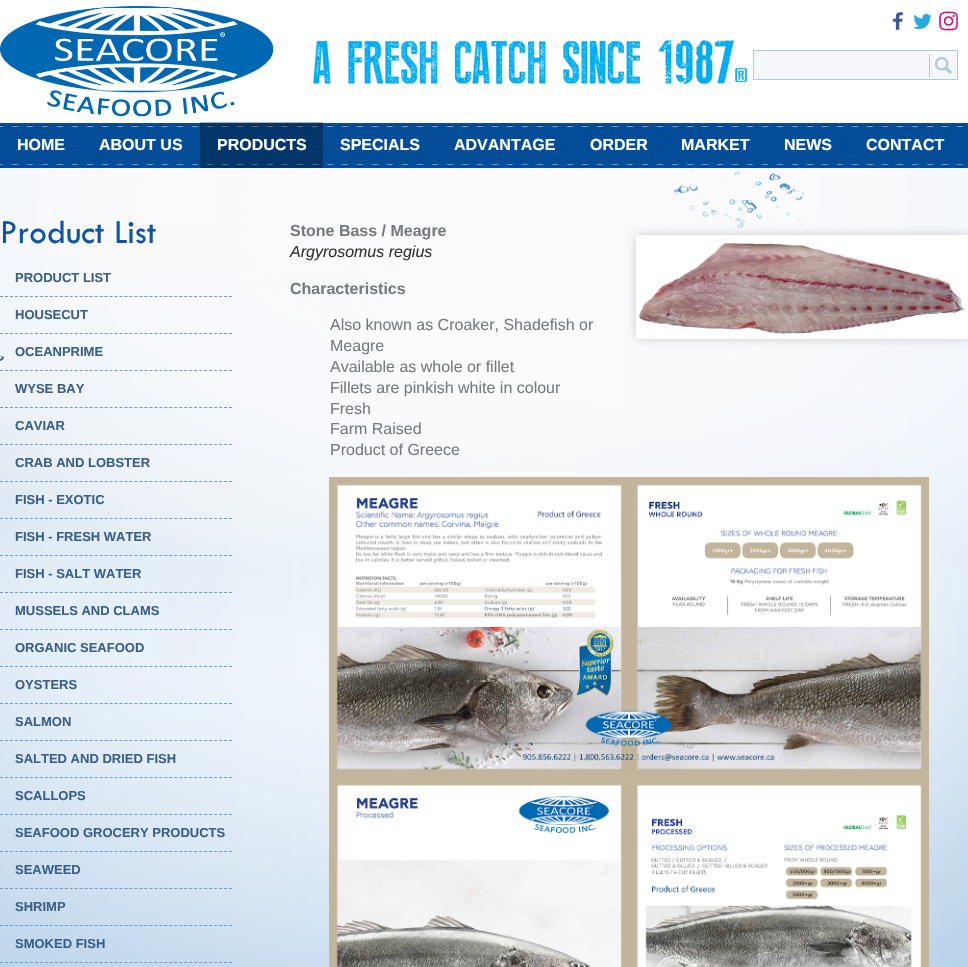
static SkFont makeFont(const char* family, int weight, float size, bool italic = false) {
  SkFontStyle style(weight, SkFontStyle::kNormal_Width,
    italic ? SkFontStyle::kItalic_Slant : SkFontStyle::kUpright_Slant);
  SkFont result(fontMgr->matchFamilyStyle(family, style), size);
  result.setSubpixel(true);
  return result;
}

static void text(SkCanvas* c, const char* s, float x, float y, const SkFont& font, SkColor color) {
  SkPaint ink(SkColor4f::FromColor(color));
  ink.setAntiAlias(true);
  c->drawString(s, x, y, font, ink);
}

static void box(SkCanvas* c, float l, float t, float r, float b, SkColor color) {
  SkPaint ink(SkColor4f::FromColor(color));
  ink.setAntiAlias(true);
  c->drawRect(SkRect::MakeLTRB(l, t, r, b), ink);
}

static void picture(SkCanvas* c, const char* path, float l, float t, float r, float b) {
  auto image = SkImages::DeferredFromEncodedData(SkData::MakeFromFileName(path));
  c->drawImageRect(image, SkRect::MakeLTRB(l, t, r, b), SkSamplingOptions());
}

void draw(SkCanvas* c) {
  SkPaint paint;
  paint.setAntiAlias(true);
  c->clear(0xffffffff);
  picture(c, "img_01.png", 0, 40, 968, 168);
  picture(c, "img_02.png", 0, 6, 274, 117);
  picture(c, "img_03.png", 892, 12, 903, 30);
  picture(c, "img_04.png", 913, 14, 932, 29);
  picture(c, "img_05.png", 939, 11, 958, 31);
  paint.setColor(0xfff4f7fb);
  c->drawRect(SkRect::MakeLTRB(753.5f, 50.5f, 957.5f, 79.5f), paint);
  paint.setStyle(SkPaint::kStroke_Style);
  paint.setStrokeWidth(1);
  paint.setColor(0xffafc9de);
  c->drawRect(SkRect::MakeLTRB(753.5f, 50.5f, 957.5f, 79.5f), paint);
  box(c, 929, 54, 930, 78, 0xffafc9de);
  picture(c, "img_06.png", 935, 57, 952, 74);
  SkFont face1 = makeFont("Liberation Sans", 700, 16);
  text(c, "HOME", 17, 150, face1, 0xffffffff);
  text(c, "ABOUT US", 99, 150, face1, 0xffffffff);
  box(c, 200, 122, 323, 168, 0x4d000000);
  text(c, "PRODUCTS", 217, 150, face1, 0xffffffff);
  text(c, "SPECIALS", 340, 150, face1, 0xffffffff);
  text(c, "ADVANTAGE", 454, 150, face1, 0xffffffff);
  text(c, "ORDER", 590, 150, face1, 0xffffffff);
  text(c, "MARKET", 681, 150, face1, 0xffffffff);
  text(c, "NEWS", 784, 150, face1, 0xffffffff);
  text(c, "CONTACT", 866, 150, face1, 0xffffffff);
  picture(c, "img_07.png", 0, 168, 968, 967);
  SkFont face2 = makeFont("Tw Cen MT", 400, 35);
  text(c, "Product List", 0, 243, face2, 0xff0d55a2);
  paint.setColor(0xff6f9ac9);
  paint.setPathEffect(SkDashPathEffect::Make({{3, 1.98f}}, 0));
  c->drawPath(SkPathBuilder().moveTo(0, 296.5f).lineTo(232, 296.5f).detach(), paint);
  paint.setPathEffect(nullptr);
  SkFont face3 = makeFont("Liberation Sans", 700, 13);
  text(c, "PRODUCT LIST", 15, 282, face3, 0xff3a6086);
  paint.setPathEffect(SkDashPathEffect::Make({{3, 1.98f}}, 0));
  c->drawPath(SkPathBuilder().moveTo(0, 333.5f).lineTo(232, 333.5f).detach(), paint);
  paint.setPathEffect(nullptr);
  text(c, "HOUSECUT", 15, 319, face3, 0xff3a6086);
  paint.setPathEffect(SkDashPathEffect::Make({{3, 1.98f}}, 0));
  c->drawPath(SkPathBuilder().moveTo(0, 370.5f).lineTo(232, 370.5f).detach(), paint);
  paint.setPathEffect(nullptr);
  text(c, "OCEANPRIME", 15, 356, face3, 0xff3a6086);
  paint.setPathEffect(SkDashPathEffect::Make({{3, 1.98f}}, 0));
  c->drawPath(SkPathBuilder().moveTo(0, 407.5f).lineTo(232, 407.5f).detach(), paint);
  paint.setPathEffect(nullptr);
  text(c, "WYSE BAY", 15, 393, face3, 0xff3a6086);
  paint.setPathEffect(SkDashPathEffect::Make({{3, 1.98f}}, 0));
  c->drawPath(SkPathBuilder().moveTo(0, 444.5f).lineTo(232, 444.5f).detach(), paint);
  paint.setPathEffect(nullptr);
  text(c, "CAVIAR", 15, 430, face3, 0xff3a6086);
  paint.setPathEffect(SkDashPathEffect::Make({{3, 1.98f}}, 0));
  c->drawPath(SkPathBuilder().moveTo(0, 481.5f).lineTo(232, 481.5f).detach(), paint);
  paint.setPathEffect(nullptr);
  text(c, "CRAB AND LOBSTER", 15, 467, face3, 0xff3a6086);
  paint.setPathEffect(SkDashPathEffect::Make({{3, 1.98f}}, 0));
  c->drawPath(SkPathBuilder().moveTo(0, 518.5f).lineTo(232, 518.5f).detach(), paint);
  paint.setPathEffect(nullptr);
  text(c, "FISH - EXOTIC", 15, 504, face3, 0xff3a6086);
  paint.setPathEffect(SkDashPathEffect::Make({{3, 1.98f}}, 0));
  c->drawPath(SkPathBuilder().moveTo(0, 555.5f).lineTo(232, 555.5f).detach(), paint);
  paint.setPathEffect(nullptr);
  text(c, "FISH - FRESH WATER", 15, 541, face3, 0xff3a6086);
  paint.setPathEffect(SkDashPathEffect::Make({{3, 1.98f}}, 0));
  c->drawPath(SkPathBuilder().moveTo(0, 592.5f).lineTo(232, 592.5f).detach(), paint);
  paint.setPathEffect(nullptr);
  text(c, "FISH - SALT WATER", 15, 578, face3, 0xff3a6086);
  paint.setPathEffect(SkDashPathEffect::Make({{3, 1.98f}}, 0));
  c->drawPath(SkPathBuilder().moveTo(0, 629.5f).lineTo(232, 629.5f).detach(), paint);
  paint.setPathEffect(nullptr);
  text(c, "MUSSELS AND CLAMS", 15, 615, face3, 0xff3a6086);
  paint.setPathEffect(SkDashPathEffect::Make({{3, 1.98f}}, 0));
  c->drawPath(SkPathBuilder().moveTo(0, 666.5f).lineTo(232, 666.5f).detach(), paint);
  paint.setPathEffect(nullptr);
  text(c, "ORGANIC SEAFOOD", 15, 652, face3, 0xff3a6086);
  paint.setPathEffect(SkDashPathEffect::Make({{3, 1.98f}}, 0));
  c->drawPath(SkPathBuilder().moveTo(0, 703.5f).lineTo(232, 703.5f).detach(), paint);
  paint.setPathEffect(nullptr);
  text(c, "OYSTERS", 15, 689, face3, 0xff3a6086);
  paint.setPathEffect(SkDashPathEffect::Make({{3, 1.98f}}, 0));
  c->drawPath(SkPathBuilder().moveTo(0, 740.5f).lineTo(232, 740.5f).detach(), paint);
  paint.setPathEffect(nullptr);
  text(c, "SALMON", 15, 726, face3, 0xff3a6086);
  paint.setPathEffect(SkDashPathEffect::Make({{3, 1.98f}}, 0));
  c->drawPath(SkPathBuilder().moveTo(0, 777.5f).lineTo(232, 777.5f).detach(), paint);
  paint.setPathEffect(nullptr);
  text(c, "SALTED AND DRIED FISH", 15, 763, face3, 0xff3a6086);
  paint.setPathEffect(SkDashPathEffect::Make({{3, 1.98f}}, 0));
  c->drawPath(SkPathBuilder().moveTo(0, 814.5f).lineTo(232, 814.5f).detach(), paint);
  paint.setPathEffect(nullptr);
  text(c, "SCALLOPS", 15, 800, face3, 0xff3a6086);
  paint.setPathEffect(SkDashPathEffect::Make({{3, 1.98f}}, 0));
  c->drawPath(SkPathBuilder().moveTo(0, 851.5f).lineTo(232, 851.5f).detach(), paint);
  paint.setPathEffect(nullptr);
  text(c, "SEAFOOD GROCERY PRODUCTS", 15, 837, face3, 0xff3a6086);
  paint.setPathEffect(SkDashPathEffect::Make({{3, 1.98f}}, 0));
  c->drawPath(SkPathBuilder().moveTo(0, 888.5f).lineTo(232, 888.5f).detach(), paint);
  paint.setPathEffect(nullptr);
  text(c, "SEAWEED", 15, 874, face3, 0xff3a6086);
  paint.setPathEffect(SkDashPathEffect::Make({{3, 1.98f}}, 0));
  c->drawPath(SkPathBuilder().moveTo(0, 925.5f).lineTo(232, 925.5f).detach(), paint);
  paint.setPathEffect(nullptr);
  text(c, "SHRIMP", 15, 911, face3, 0xff3a6086);
  paint.setPathEffect(SkDashPathEffect::Make({{3, 1.98f}}, 0));
  c->drawPath(SkPathBuilder().moveTo(0, 962.5f).lineTo(232, 962.5f).detach(), paint);
  paint.setPathEffect(nullptr);
  text(c, "SMOKED FISH", 15, 948, face3, 0xff3a6086);
  text(c, "Stone Bass / Meagre", 290, 236, face1, 0xff777b7f);
  SkFont face4 = makeFont("Liberation Sans", 400, 16, true);
  text(c, "Argyrosomus regius", 290, 257, face4, 0xff333333);
  paint.setStyle(SkPaint::kFill_Style);
  paint.setColor(0xffcccccc);
  paint.setMaskFilter(SkMaskFilter::MakeBlur(kNormal_SkBlurStyle, 5));
  c->drawRect(SkRect::MakeLTRB(636, 235, 968, 339), paint);
  paint.setMaskFilter(nullptr);
  box(c, 636, 235, 968, 339, 0xffffffff);
  picture(c, "img_08.png", 639, 238, 965, 334);
  text(c, "Characteristics", 290, 294, face1, 0xff777b7f);
  SkFont face5 = makeFont("Liberation Sans", 400, 16);
  text(c, "Also known as Croaker, Shadefish or", 330, 330, face5, 0xff777b7f);
  text(c, "Meagre", 330, 351, face5, 0xff777b7f);
  text(c, "Available as whole or fillet", 330, 372, face5, 0xff777b7f);
  text(c, "Fillets are pinkish white in colour", 330, 393, face5, 0xff777b7f);
  text(c, "Fresh", 330, 414, face5, 0xff777b7f);
  text(c, "Farm Raised", 330, 434, face5, 0xff777b7f);
  text(c, "Product of Greece", 330, 455, face5, 0xff777b7f);
  picture(c, "img_09.png", 329, 477, 929, 777);
  picture(c, "img_10.png", 329, 777, 929, 967);
}
